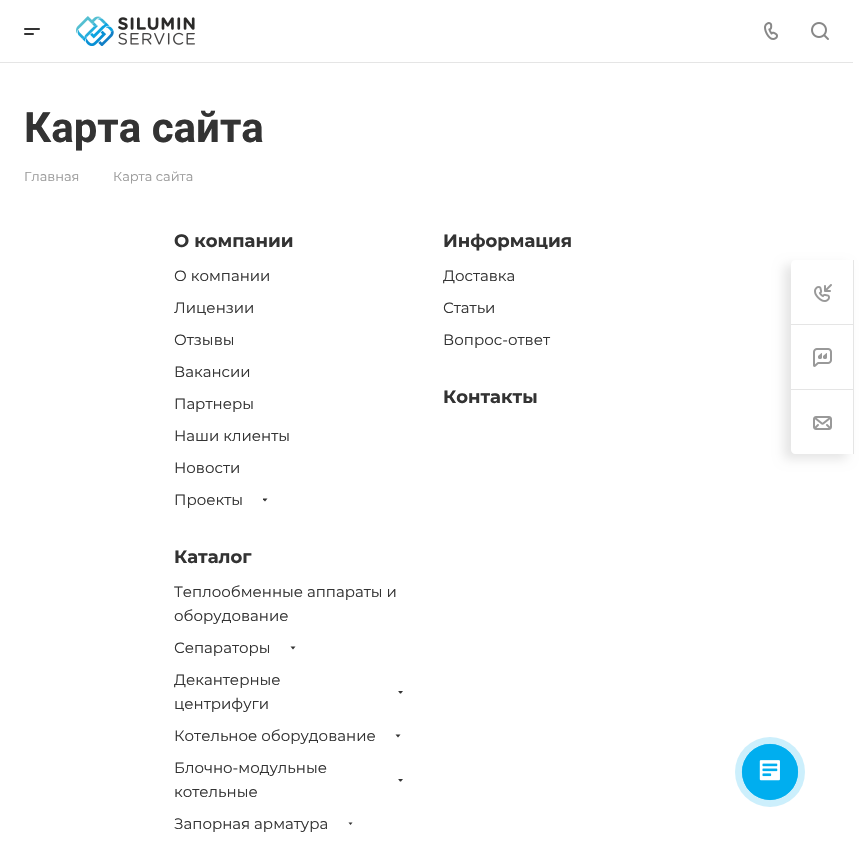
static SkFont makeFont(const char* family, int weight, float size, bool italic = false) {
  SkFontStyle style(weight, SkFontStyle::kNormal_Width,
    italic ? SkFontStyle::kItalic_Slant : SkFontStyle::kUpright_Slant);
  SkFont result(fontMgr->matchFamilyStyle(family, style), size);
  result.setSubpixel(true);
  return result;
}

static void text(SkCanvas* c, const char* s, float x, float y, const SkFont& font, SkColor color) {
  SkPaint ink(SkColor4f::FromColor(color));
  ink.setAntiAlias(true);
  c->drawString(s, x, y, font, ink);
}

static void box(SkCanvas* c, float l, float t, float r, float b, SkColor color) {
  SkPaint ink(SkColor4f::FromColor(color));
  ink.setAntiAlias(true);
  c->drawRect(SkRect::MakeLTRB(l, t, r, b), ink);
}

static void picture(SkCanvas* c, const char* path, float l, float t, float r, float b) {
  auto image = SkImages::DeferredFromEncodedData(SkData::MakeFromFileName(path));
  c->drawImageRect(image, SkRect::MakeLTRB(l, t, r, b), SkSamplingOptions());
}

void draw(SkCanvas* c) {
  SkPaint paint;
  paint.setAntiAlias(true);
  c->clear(0xffffffff);
  box(c, 0, 62, 853, 63, 0xffe5e5e5);
  picture(c, "img_01.png", 24, 28, 40, 35);
  picture(c, "img_02.png", 76, 16, 195, 46);
  picture(c, "img_03.png", 764, 22, 778, 40);
  picture(c, "img_04.png", 811, 22, 829, 40);
  SkFont face1 = makeFont("Roboto", 700, 42);
  text(c, "Карта сайта", 24, 142, face1, 0xff333333);
  SkFont face2 = makeFont("Montserrat", 400, 13);
  text(c, "Главная", 24, 181, face2, 0xff999999);
  text(c, "Карта сайта", 113, 181, face2, 0xff999999);
  SkFont face3 = makeFont("Montserrat", 700, 18);
  text(c, "О компании", 174, 247, face3, 0xff333333);
  SkFont face4 = makeFont("Montserrat", 400, 15);
  text(c, "О компании", 174, 281, face4, 0xff333333);
  text(c, "Лицензии", 174, 313, face4, 0xff333333);
  text(c, "Отзывы", 174, 345, face4, 0xff333333);
  text(c, "Вакансии", 174, 377, face4, 0xff333333);
  text(c, "Партнеры", 174, 409, face4, 0xff333333);
  text(c, "Наши клиенты", 174, 441, face4, 0xff333333);
  text(c, "Новости", 174, 473, face4, 0xff333333);
  text(c, "Проекты", 174, 505, face4, 0xff333333);
  paint.setColor(0xff333333);
  c->drawPath(SkPathBuilder().moveTo(265, 501.5f).lineTo(267.5f, 498.5f).lineTo(263, 498.5f).lineTo(263, 499.5f).close().detach(), paint);
  text(c, "Каталог", 174, 563, face3, 0xff333333);
  text(c, "Теплообменные аппараты и", 174, 597, face4, 0xff333333);
  text(c, "оборудование", 174, 621, face4, 0xff333333);
  text(c, "Сепараторы", 174, 653, face4, 0xff333333);
  c->drawPath(SkPathBuilder().moveTo(293, 649.5f).lineTo(290.5f, 646.5f).lineTo(295.5f, 646.5f).close().detach(), paint);
  text(c, "Декантерные", 174, 685, face4, 0xff333333);
  text(c, "центрифуги", 174, 709, face4, 0xff333333);
  c->drawPath(SkPathBuilder().moveTo(398.5f, 691).lineTo(403, 691).lineTo(401, 693.5f).lineTo(400, 693.5f).lineTo(398.5f, 691.5f).close().detach(), paint);
  text(c, "Котельное оборудование", 174, 741, face4, 0xff333333);
  c->drawPath(SkPathBuilder().moveTo(398, 737.5f).lineTo(395.5f, 734.5f).lineTo(400.5f, 734.5f).close().detach(), paint);
  text(c, "Блочно-модульные", 174, 773, face4, 0xff333333);
  text(c, "котельные", 174, 797, face4, 0xff333333);
  c->drawPath(SkPathBuilder().moveTo(398.5f, 779).lineTo(403, 779).lineTo(401, 781.5f).lineTo(400, 781.5f).lineTo(398.5f, 779.5f).close().detach(), paint);
  text(c, "Запорная арматура", 174, 829, face4, 0xff333333);
  c->drawPath(SkPathBuilder().moveTo(350.5f, 825).lineTo(352.5f, 822.5f).lineTo(348.5f, 822.5f).close().detach(), paint);
  text(c, "Информация", 443, 247, face3, 0xff333333);
  text(c, "Доставка", 443, 281, face4, 0xff333333);
  text(c, "Статьи", 443, 313, face4, 0xff333333);
  text(c, "Вопрос-ответ", 443, 345, face4, 0xff333333);
  text(c, "Контакты", 443, 403, face3, 0xff333333);
  paint.setColor(0x1a000000);
  paint.setMaskFilter(SkMaskFilter::MakeBlur(kNormal_SkBlurStyle, 5.5f));
  c->drawRoundRect(SkRect::MakeLTRB(784, 265, 847, 459), 4, 4, paint);
  paint.setMaskFilter(nullptr);
  paint.setColor(0xffffffff);
  c->drawPath(SkPathBuilder().moveTo(795, 260).lineTo(854, 260).lineTo(854, 454).lineTo(795, 454).cubicTo(793, 454, 791, 452, 791, 450).lineTo(791, 264).cubicTo(791, 262, 793, 260, 795, 260).close().detach(), paint);
  picture(c, "img_05.png", 814, 284, 832, 302);
  box(c, 791, 324, 854, 325, 0xffe5e5e5);
  box(c, 791, 389, 854, 390, 0xffe5e5e5);
  box(c, 853, 260, 854, 454, 0xffe5e5e5);
  picture(c, "img_06.png", 813, 348, 832, 367);
  picture(c, "img_07.png", 813, 416, 832, 430);
  paint.setColor(0xffcceffc);
  c->drawCircle(770, 772, 35, paint);
  paint.setStyle(SkPaint::kStroke_Style);
  paint.setStrokeWidth(0.8f);
  paint.setColor(0xff00aeef);
  c->drawCircle(770, 772, 27.6f, paint);
  paint.setStyle(SkPaint::kFill_Style);
  c->drawCircle(770, 772, 28, paint);
  picture(c, "img_08.png", 759, 760, 780, 781);
}
